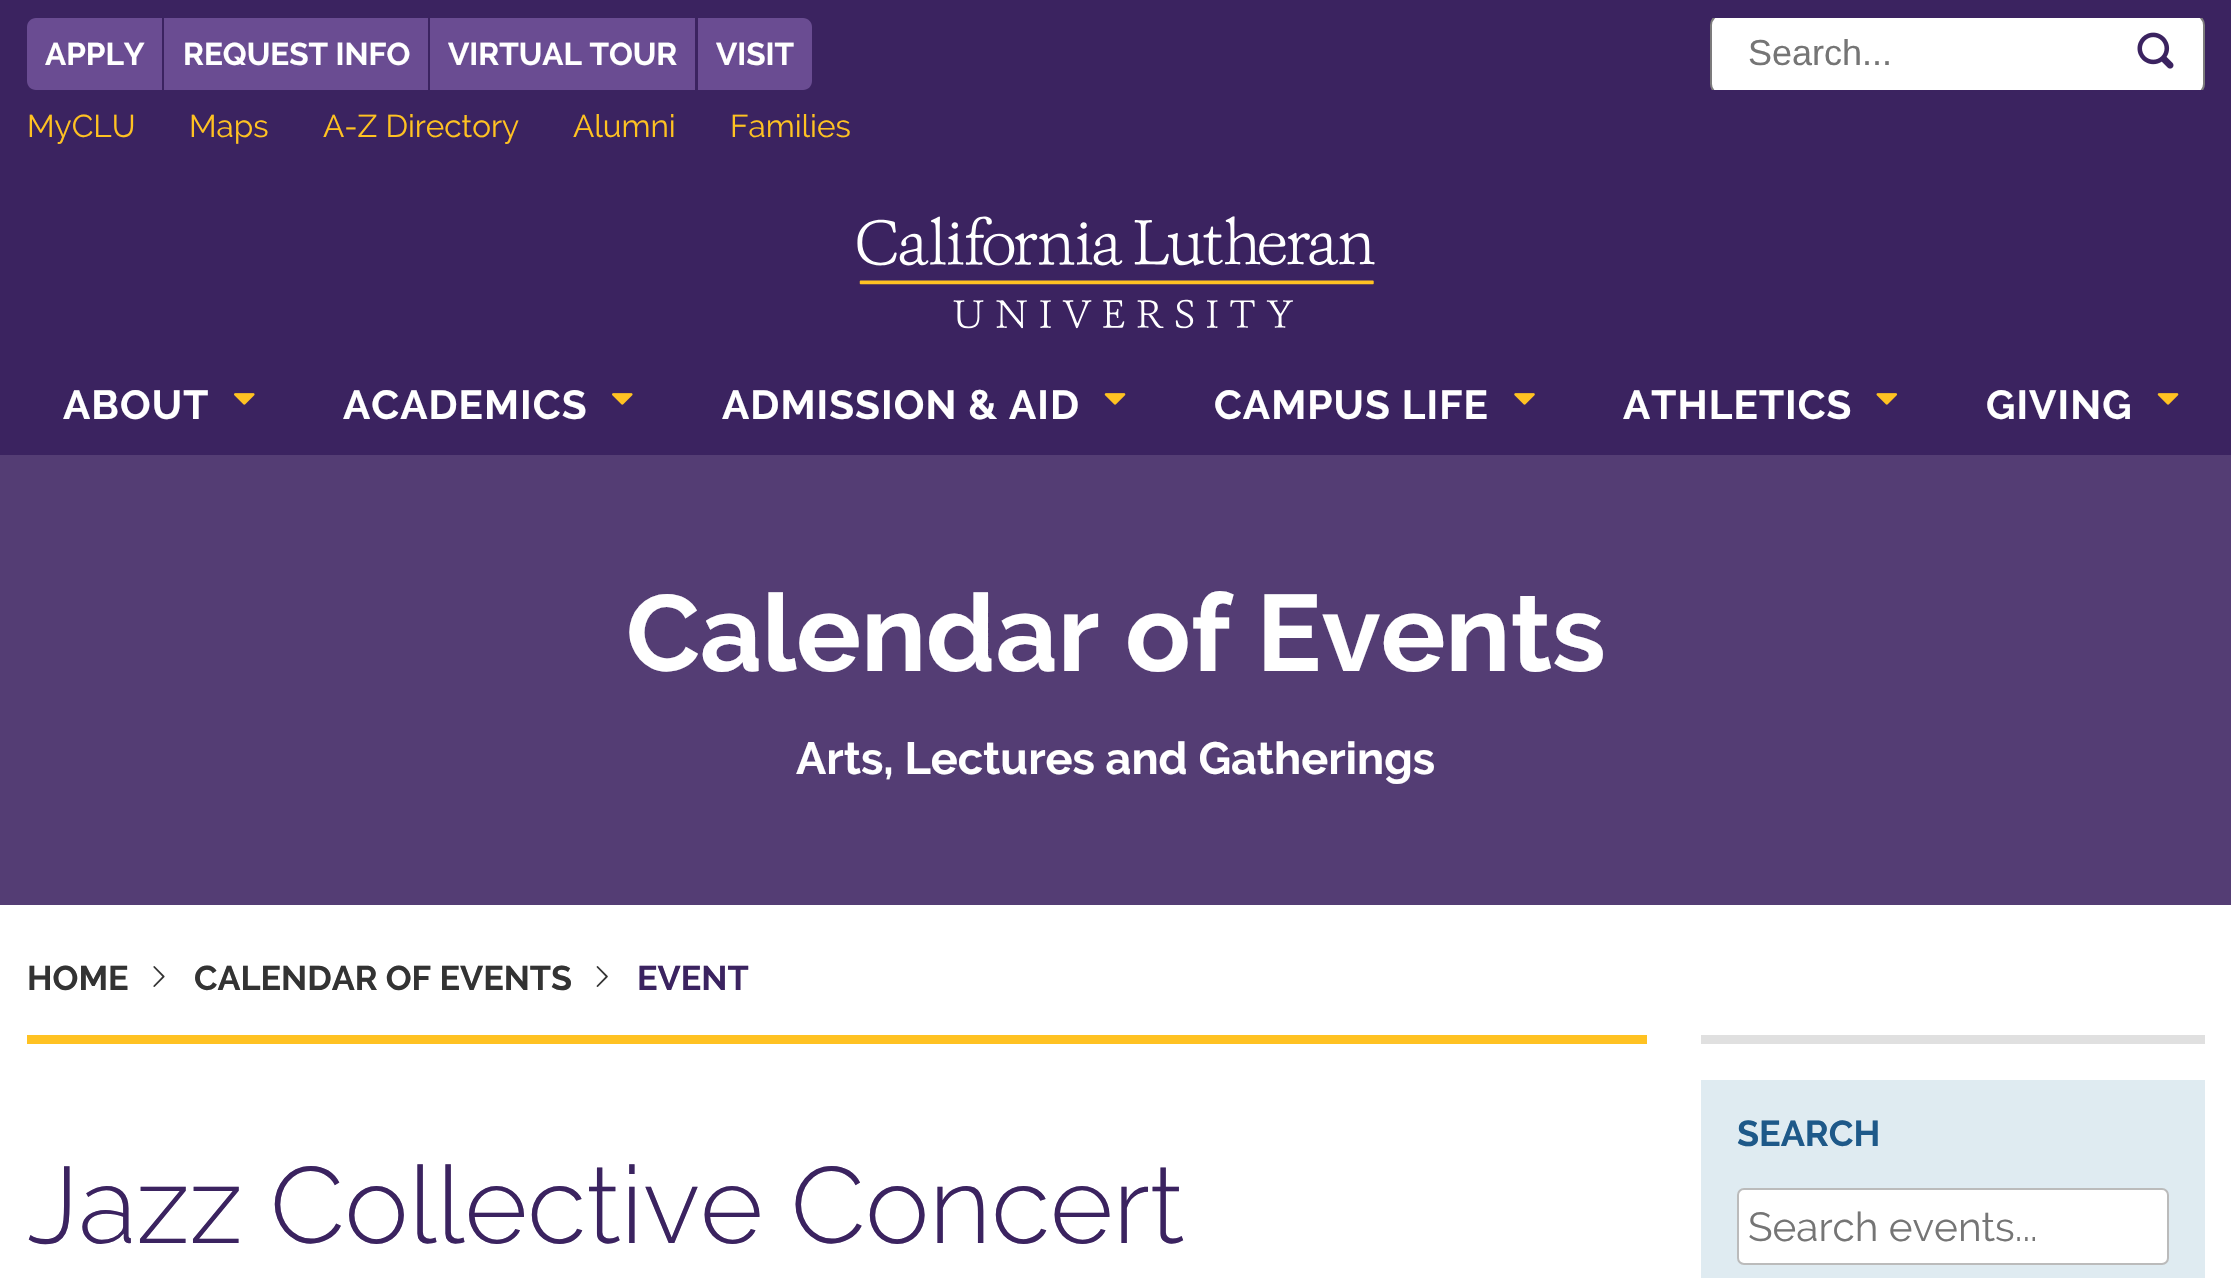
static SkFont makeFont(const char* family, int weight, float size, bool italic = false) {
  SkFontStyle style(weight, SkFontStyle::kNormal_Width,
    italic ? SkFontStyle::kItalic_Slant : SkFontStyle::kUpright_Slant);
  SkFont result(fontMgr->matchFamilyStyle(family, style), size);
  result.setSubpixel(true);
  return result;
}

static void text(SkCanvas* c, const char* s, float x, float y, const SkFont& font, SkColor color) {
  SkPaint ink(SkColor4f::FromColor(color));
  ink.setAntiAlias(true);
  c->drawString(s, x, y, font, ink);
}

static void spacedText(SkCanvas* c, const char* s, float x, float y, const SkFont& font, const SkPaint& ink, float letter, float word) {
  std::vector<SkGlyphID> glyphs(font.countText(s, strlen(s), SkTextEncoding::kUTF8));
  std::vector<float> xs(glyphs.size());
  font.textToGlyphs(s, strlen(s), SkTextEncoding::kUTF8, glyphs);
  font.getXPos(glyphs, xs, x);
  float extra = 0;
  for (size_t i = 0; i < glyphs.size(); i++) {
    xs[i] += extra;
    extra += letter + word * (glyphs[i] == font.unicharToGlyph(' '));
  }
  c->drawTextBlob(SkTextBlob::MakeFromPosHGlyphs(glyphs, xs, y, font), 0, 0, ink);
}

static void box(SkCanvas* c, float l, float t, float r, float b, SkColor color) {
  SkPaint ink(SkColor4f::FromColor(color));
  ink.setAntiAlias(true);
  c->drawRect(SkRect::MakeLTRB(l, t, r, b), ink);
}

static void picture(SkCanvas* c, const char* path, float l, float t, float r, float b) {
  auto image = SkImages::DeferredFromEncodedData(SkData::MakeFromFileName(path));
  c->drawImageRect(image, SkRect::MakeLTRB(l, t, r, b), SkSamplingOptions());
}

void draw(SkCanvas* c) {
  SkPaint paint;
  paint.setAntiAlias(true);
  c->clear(0xffffffff);
  box(c, 0, 0, 2231, 455, 0xff3b2360);
  paint.setColor(0xff6a4c92);
  c->drawPath(SkPathBuilder().moveTo(36, 18).lineTo(162, 18).lineTo(162, 90).lineTo(36, 90).cubicTo(31, 90, 27, 86, 27, 81).lineTo(27, 27).cubicTo(27, 22, 31, 18, 36, 18).close().detach(), paint);
  SkFont face1 = makeFont("Raleway", 700, 31.5f);
  text(c, "APPLY", 45, 65, face1, 0xffffffff);
  box(c, 164, 18, 428, 90, 0xff6a4c92);
  text(c, "REQUEST INFO", 183, 65, face1, 0xffffffff);
  box(c, 430, 18, 695, 90, 0xff6a4c92);
  text(c, "VIRTUAL TOUR", 448, 65, face1, 0xffffffff);
  c->drawPath(SkPathBuilder().moveTo(698, 18).lineTo(803, 18).cubicTo(808, 18, 812, 22, 812, 27).lineTo(812, 81).cubicTo(812, 86, 808, 90, 803, 90).lineTo(698, 90).close().detach(), paint);
  text(c, "VISIT", 716, 65, face1, 0xffffffff);
  SkFont face2 = makeFont("Raleway", 400, 31.5f);
  text(c, "MyCLU", 27, 137, face2, 0xffffc222);
  text(c, "Maps", 189, 137, face2, 0xffffc222);
  text(c, "A-Z Directory", 323, 137, face2, 0xffffc222);
  text(c, "Alumni", 573, 137, face2, 0xffffc222);
  text(c, "Families", 730, 137, face2, 0xffffc222);
  c->save();
  c->clipRect(SkRect::MakeLTRB(1710, 18, 2205, 90));
  paint.setColor(0xffffffff);
  c->drawRoundRect(SkRect::MakeLTRB(1711, 15, 2204, 94), 10, 10, paint);
  paint.setStyle(SkPaint::kStroke_Style);
  paint.setStrokeWidth(2);
  paint.setColor(0xff7c7b7c);
  c->drawRoundRect(SkRect::MakeLTRB(1711, 15, 2204, 94), 10, 10, paint);
  c->restore();
  SkFont face3 = makeFont("Liberation Sans", 400, 36);
  text(c, "Search...", 1748, 65, face3, 0xff757575);
  picture(c, "img_01.png", 2137, 32, 2174, 69);
  picture(c, "img_02.png", 857, 216, 1375, 329);
  SkFont face4 = makeFont("Raleway", 700, 40.5f);
  paint.setStyle(SkPaint::kFill_Style);
  paint.setColor(0xffffffff);
  spacedText(c, "ABOUT", 63, 419, face4, paint, 1.1f, 0);
  picture(c, "img_03.png", 234, 393, 255, 405);
  spacedText(c, "ACADEMICS", 343, 419, face4, paint, 1.1f, 0);
  picture(c, "img_03.png", 612, 393, 633, 405);
  spacedText(c, "ADMISSION & AID", 722, 419, face4, paint, 1.1f, 0);
  picture(c, "img_04.png", 1104, 393, 1126, 405);
  spacedText(c, "CAMPUS LIFE", 1214, 419, face4, paint, 1.1f, 0);
  picture(c, "img_05.png", 1514, 393, 1535, 405);
  spacedText(c, "ATHLETICS", 1623, 419, face4, paint, 1.1f, 0);
  picture(c, "img_06.png", 1876, 393, 1898, 405);
  spacedText(c, "GIVING", 1986, 419, face4, paint, 1.1f, 0);
  picture(c, "img_04.png", 2157, 393, 2179, 405);
  box(c, 0, 455, 2231, 905, 0xff543d74);
  SkFont face5 = makeFont("Raleway", 700, 108);
  text(c, "Calendar of Events", 626, 671, face5, 0xffffffff);
  SkFont face6 = makeFont("Raleway", 700, 45);
  text(c, "Arts, Lectures and Gatherings", 796, 774, face6, 0xffffffff);
  box(c, 27, 1035, 1647, 1044, 0xffffc222);
  SkFont face7 = makeFont("Raleway", 700, 34.25f);
  text(c, "HOME", 27, 990, face7, 0xff333333);
  picture(c, "img_07.png", 153, 966, 165, 987);
  text(c, "CALENDAR OF EVENTS", 194, 990, face7, 0xff333333);
  picture(c, "img_08.png", 596, 966, 608, 987);
  text(c, "EVENT", 637, 990, face7, 0xff3b2360);
  SkFont face8 = makeFont("Raleway", 300, 108);
  text(c, "Jazz Collective Concert", 27, 1243, face8, 0xff3b2360);
  box(c, 1701, 1035, 2205, 1044, 0xffe0e0e0);
  box(c, 1701, 1080, 2205, 1278, 0xffdfebf1);
  SkFont face9 = makeFont("Raleway", 700, 36);
  text(c, "SEARCH", 1737, 1146, face9, 0xff1e5989);
  c->drawRoundRect(SkRect::MakeLTRB(1738, 1189, 2168, 1264), 6, 6, paint);
  paint.setStyle(SkPaint::kStroke_Style);
  paint.setColor(0xffbbbbbb);
  c->drawRoundRect(SkRect::MakeLTRB(1738, 1189, 2168, 1264), 6, 6, paint);
  SkFont face10 = makeFont("Raleway", 400, 40.5f);
  text(c, "Search events...", 1748, 1241, face10, 0xff757575);
}
